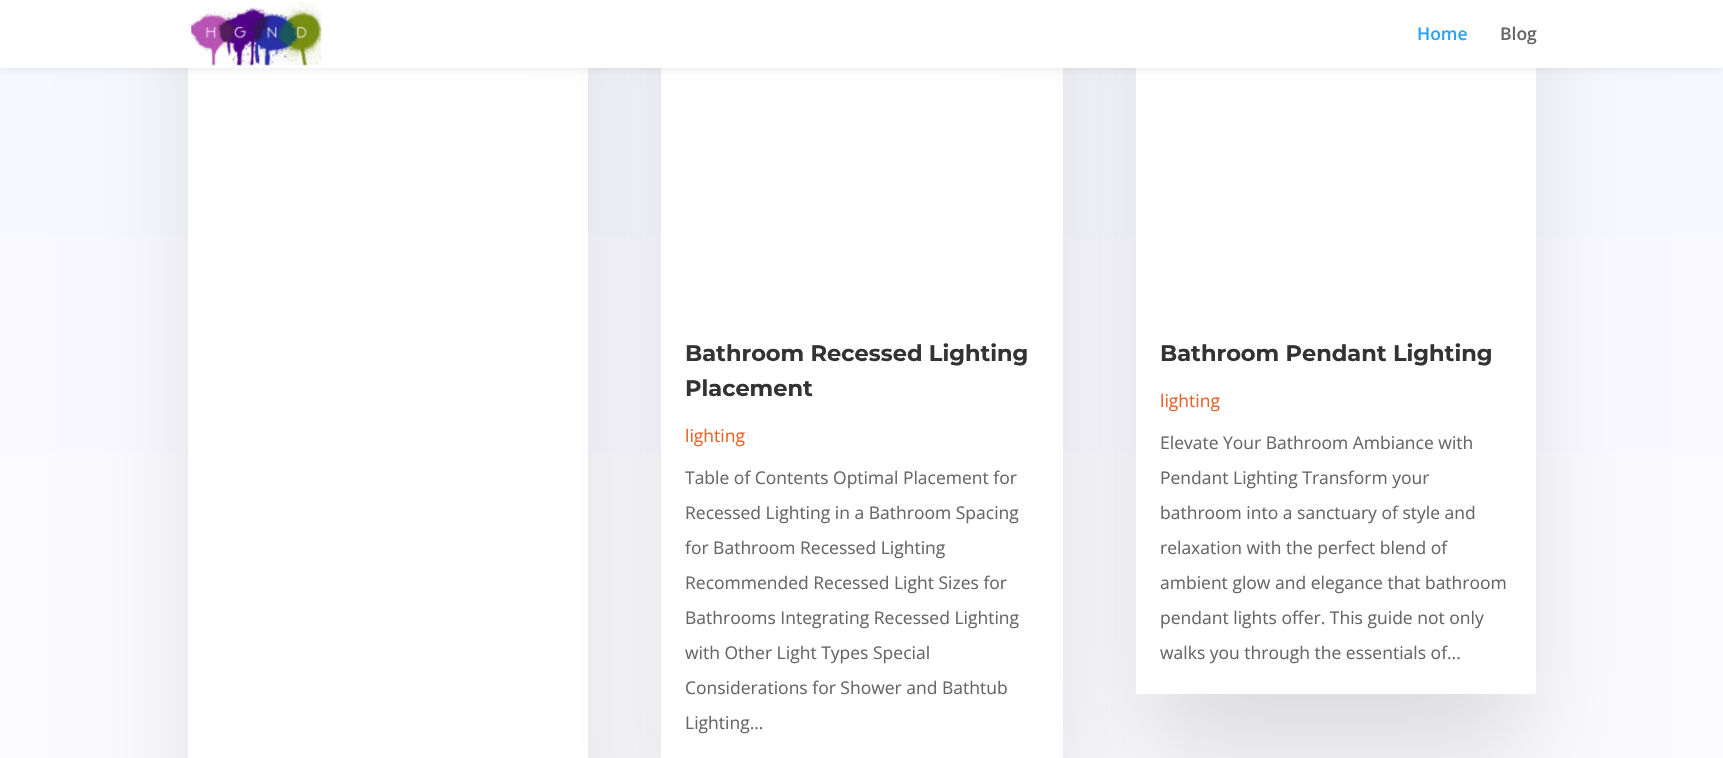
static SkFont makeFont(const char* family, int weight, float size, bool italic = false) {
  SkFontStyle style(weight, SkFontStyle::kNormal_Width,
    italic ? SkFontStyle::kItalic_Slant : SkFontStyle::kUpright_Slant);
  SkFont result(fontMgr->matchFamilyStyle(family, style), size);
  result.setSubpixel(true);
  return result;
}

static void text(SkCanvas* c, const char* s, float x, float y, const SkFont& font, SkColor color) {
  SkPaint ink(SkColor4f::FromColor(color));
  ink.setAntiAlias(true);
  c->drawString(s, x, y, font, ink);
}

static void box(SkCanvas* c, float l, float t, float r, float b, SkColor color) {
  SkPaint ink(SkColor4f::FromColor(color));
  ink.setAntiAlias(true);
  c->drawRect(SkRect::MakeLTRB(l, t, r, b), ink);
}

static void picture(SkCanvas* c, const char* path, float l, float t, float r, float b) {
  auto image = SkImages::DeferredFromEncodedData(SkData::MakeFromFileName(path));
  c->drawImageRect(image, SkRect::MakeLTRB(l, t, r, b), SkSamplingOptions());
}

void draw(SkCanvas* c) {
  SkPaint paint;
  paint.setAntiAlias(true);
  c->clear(0xffffffff);
  {
    const SkColor colors[] = {0xffefefff, 0xffffffff};
    const float stops[] = {0, 1};
    const SkPoint ends[] = {{862, -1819}, {862, 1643}};
    paint.setShader(SkGradientShader::MakeLinear(ends, colors, stops, 2, SkTileMode::kClamp));
    paint.setAlpha(255);
  }
  c->drawRect(SkRect::MakeLTRB(0, 68, 1723, 758), paint);
  paint.setShader(nullptr);
  paint.setColor(0x1f000000);
  paint.setMaskFilter(SkMaskFilter::MakeBlur(kNormal_SkBlurStyle, 50));
  c->drawRect(SkRect::MakeLTRB(200, -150, 575, 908), paint);
  paint.setMaskFilter(nullptr);
  box(c, 188, 68, 588, 758, 0xffffffff);
  paint.setMaskFilter(SkMaskFilter::MakeBlur(kNormal_SkBlurStyle, 50));
  c->drawRect(SkRect::MakeLTRB(674, -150, 1050, 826), paint);
  paint.setMaskFilter(nullptr);
  box(c, 661, 68, 1063, 758, 0xffffffff);
  paint.setMaskFilter(SkMaskFilter::MakeBlur(kNormal_SkBlurStyle, 50));
  c->drawRect(SkRect::MakeLTRB(1149, -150, 1524, 756), paint);
  paint.setMaskFilter(nullptr);
  box(c, 1136, 68, 1536, 694, 0xffffffff);
  paint.setColor(0x1a000000);
  paint.setMaskFilter(SkMaskFilter::MakeBlur(kNormal_SkBlurStyle, 4.5f));
  c->drawRect(SkRect::MakeLTRB(0, 0, 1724, 68), paint);
  paint.setMaskFilter(nullptr);
  box(c, 0, 0, 1723, 68, 0xffffffff);
  picture(c, "img_01.png", 191, 2, 322, 66);
  SkFont face1 = makeFont("Open Sans", 600, 17.5f);
  text(c, "Home", 1417, 40, face1, 0xff2ea3f2);
  text(c, "Blog", 1500, 40, face1, 0xff666666);
  SkFont face2 = makeFont("Montserrat", 700, 22.5f);
  text(c, "Bathroom Recessed Lighting", 685, 361, face2, 0xff333333);
  text(c, "Placement", 685, 396, face2, 0xff333333);
  SkFont face3 = makeFont("Open Sans", 400, 17.5f);
  text(c, "lighting", 685, 442, face3, 0xffe66229);
  text(c, "Table of Contents Optimal Placement for", 685, 484, face3, 0xff666666);
  text(c, "Recessed Lighting in a Bathroom Spacing", 685, 519, face3, 0xff666666);
  text(c, "for Bathroom Recessed Lighting", 685, 554, face3, 0xff666666);
  text(c, "Recommended Recessed Light Sizes for", 685, 589, face3, 0xff666666);
  text(c, "Bathrooms Integrating Recessed Lighting", 685, 624, face3, 0xff666666);
  text(c, "with Other Light Types Special", 685, 659, face3, 0xff666666);
  text(c, "Considerations for Shower and Bathtub", 685, 694, face3, 0xff666666);
  text(c, "Lighting...", 685, 729, face3, 0xff666666);
  text(c, "Bathroom Pendant Lighting", 1160, 361, face2, 0xff333333);
  text(c, "lighting", 1160, 407, face3, 0xffe66229);
  text(c, "Elevate Your Bathroom Ambiance with", 1160, 449, face3, 0xff666666);
  text(c, "Pendant Lighting Transform your", 1160, 484, face3, 0xff666666);
  text(c, "bathroom into a sanctuary of style and", 1160, 519, face3, 0xff666666);
  text(c, "relaxation with the perfect blend of", 1160, 554, face3, 0xff666666);
  text(c, "ambient glow and elegance that bathroom", 1160, 589, face3, 0xff666666);
  text(c, "pendant lights offer. This guide not only", 1160, 624, face3, 0xff666666);
  text(c, "walks you through the essentials of...", 1160, 659, face3, 0xff666666);
}
